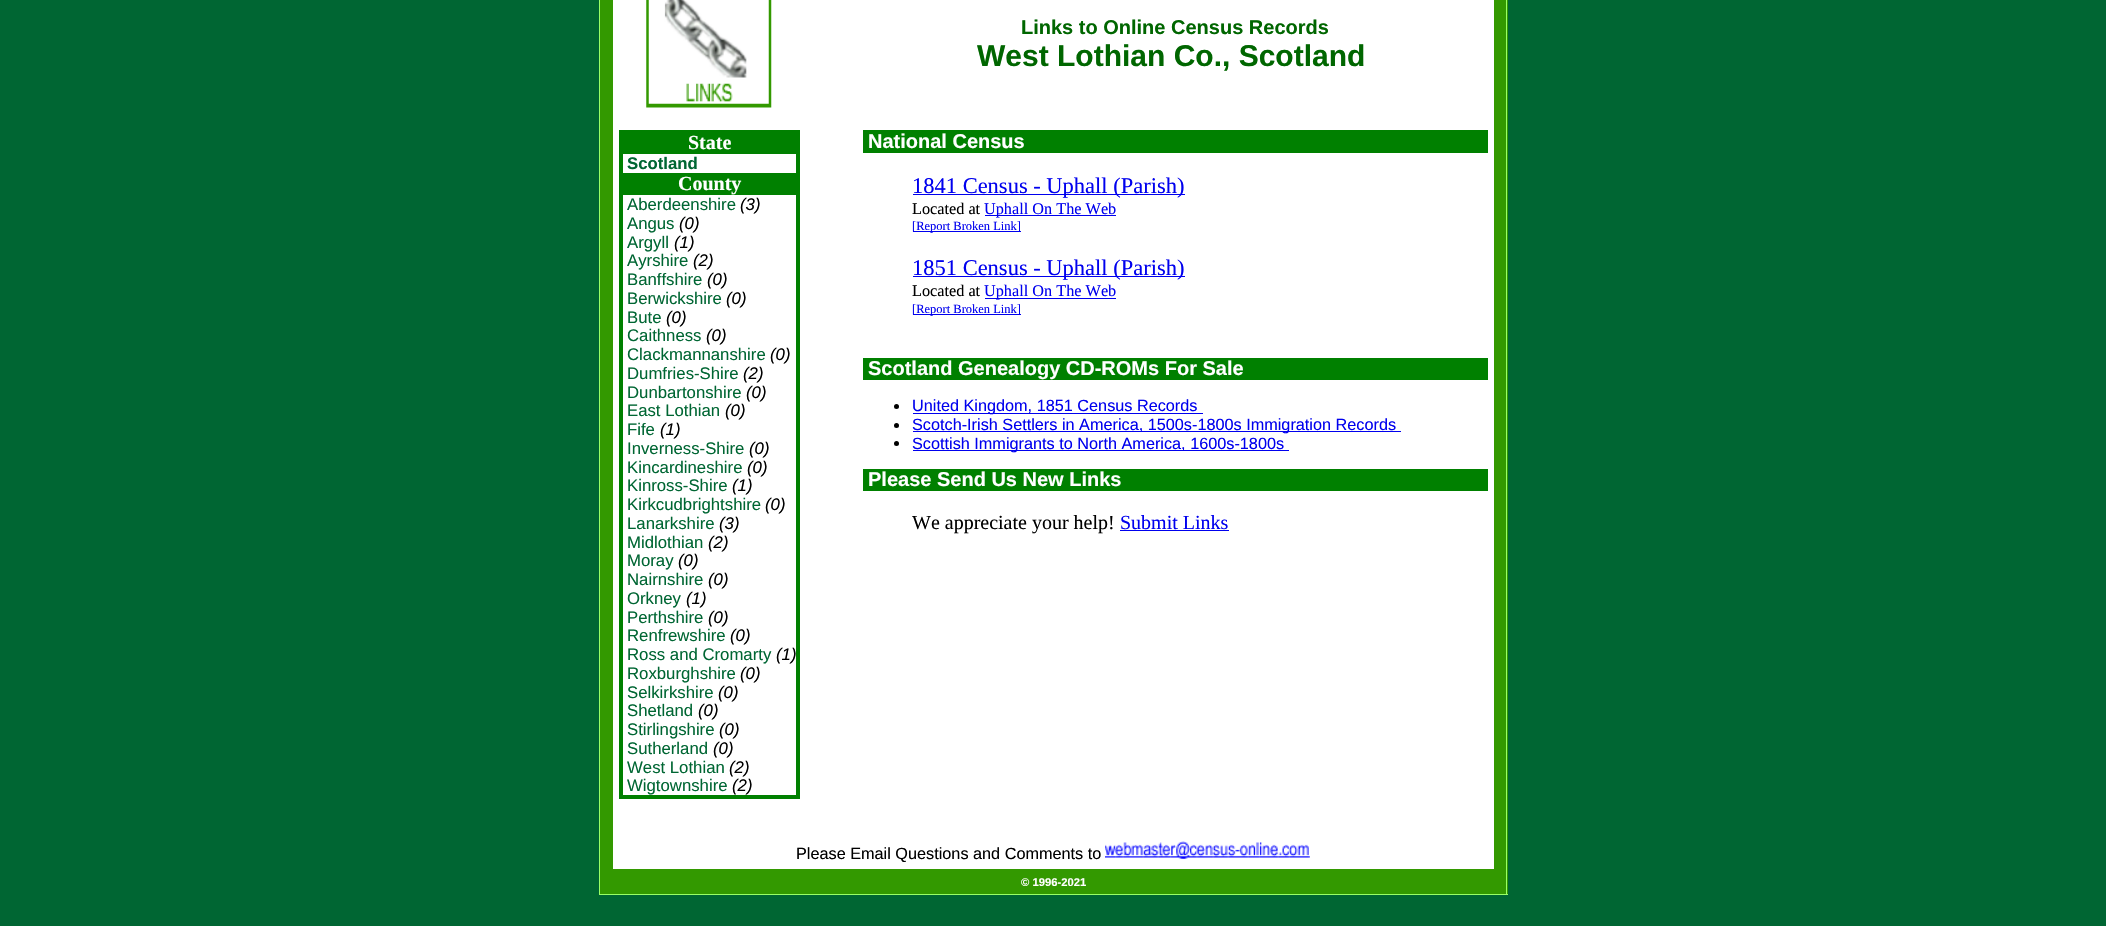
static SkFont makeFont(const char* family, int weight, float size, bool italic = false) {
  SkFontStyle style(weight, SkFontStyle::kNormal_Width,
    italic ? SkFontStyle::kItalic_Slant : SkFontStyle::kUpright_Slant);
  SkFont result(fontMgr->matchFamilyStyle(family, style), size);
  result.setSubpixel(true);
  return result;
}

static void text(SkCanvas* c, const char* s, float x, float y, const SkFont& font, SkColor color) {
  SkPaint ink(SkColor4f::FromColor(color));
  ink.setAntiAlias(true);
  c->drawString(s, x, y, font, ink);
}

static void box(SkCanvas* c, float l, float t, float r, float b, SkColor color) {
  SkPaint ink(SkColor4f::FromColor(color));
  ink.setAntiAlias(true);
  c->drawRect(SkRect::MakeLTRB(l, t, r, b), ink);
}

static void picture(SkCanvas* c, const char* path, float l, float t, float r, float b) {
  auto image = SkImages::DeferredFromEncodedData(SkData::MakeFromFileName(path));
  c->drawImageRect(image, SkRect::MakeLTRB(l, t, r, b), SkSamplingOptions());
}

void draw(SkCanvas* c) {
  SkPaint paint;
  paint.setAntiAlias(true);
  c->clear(0xff006633);
  box(c, 600, 0, 1508, 894, 0xff339900);
  box(c, 599, 0, 600, 894, 0xff99ff66);
  box(c, 1506, 0, 1507, 894, 0xff99ff66);
  box(c, 613, 0, 1494, 869, 0xffffffff);
  picture(c, "img_01.png", 646, 0, 772, 108);
  SkFont face1 = makeFont("Liberation Sans", 700, 20);
  text(c, "Links to Online Census Records", 1021, 34, face1, 0xff006600);
  SkFont face2 = makeFont("Liberation Sans", 700, 30);
  text(c, "West Lothian Co., Scotland", 977, 66, face2, 0xff006600);
  box(c, 619, 130, 800, 131, 0xff008000);
  box(c, 619, 131, 623, 795, 0xff008000);
  box(c, 623, 131, 796, 154, 0xff008000);
  SkFont face3 = makeFont("Liberation Serif", 700, 20);
  text(c, "State", 688, 149, face3, 0xffffffff);
  SkFont face4 = makeFont("Liberation Sans", 700, 16.75f);
  text(c, "Scotland", 627, 169, face4, 0xff006633);
  box(c, 623, 173, 796, 195, 0xff008000);
  text(c, "County", 678, 190, face3, 0xffffffff);
  SkFont face5 = makeFont("Liberation Sans", 400, 16.75f);
  text(c, "Aberdeenshire", 627, 210, face5, 0xff006633);
  SkFont face6 = makeFont("Liberation Sans", 400, 16.75f, true);
  text(c, "(3)", 740, 210, face6, 0xff000000);
  text(c, "Angus", 627, 229, face5, 0xff006633);
  text(c, "(0)", 679, 229, face6, 0xff000000);
  text(c, "Argyll", 627, 248, face5, 0xff006633);
  text(c, "(1)", 674, 248, face6, 0xff000000);
  text(c, "Ayrshire", 627, 266, face5, 0xff006633);
  text(c, "(2)", 693, 266, face6, 0xff000000);
  text(c, "Banffshire", 627, 285, face5, 0xff006633);
  text(c, "(0)", 707, 285, face6, 0xff000000);
  text(c, "Berwickshire", 627, 304, face5, 0xff006633);
  text(c, "(0)", 726, 304, face6, 0xff000000);
  text(c, "Bute", 627, 323, face5, 0xff006633);
  text(c, "(0)", 666, 323, face6, 0xff000000);
  text(c, "Caithness", 627, 341, face5, 0xff006633);
  text(c, "(0)", 706, 341, face6, 0xff000000);
  text(c, "Clackmannanshire", 627, 360, face5, 0xff006633);
  text(c, "(0)", 770, 360, face6, 0xff000000);
  text(c, "Dumfries-Shire", 627, 379, face5, 0xff006633);
  text(c, "(2)", 743, 379, face6, 0xff000000);
  text(c, "Dunbartonshire", 627, 398, face5, 0xff006633);
  text(c, "(0)", 746, 398, face6, 0xff000000);
  text(c, "East Lothian", 627, 416, face5, 0xff006633);
  text(c, "(0)", 725, 416, face6, 0xff000000);
  text(c, "Fife", 627, 435, face5, 0xff006633);
  text(c, "(1)", 660, 435, face6, 0xff000000);
  text(c, "Inverness-Shire", 627, 454, face5, 0xff006633);
  text(c, "(0)", 749, 454, face6, 0xff000000);
  text(c, "Kincardineshire", 627, 473, face5, 0xff006633);
  text(c, "(0)", 747, 473, face6, 0xff000000);
  text(c, "Kinross-Shire", 627, 491, face5, 0xff006633);
  text(c, "(1)", 732, 491, face6, 0xff000000);
  text(c, "Kirkcudbrightshire", 627, 510, face5, 0xff006633);
  text(c, "(0)", 765, 510, face6, 0xff000000);
  text(c, "Lanarkshire", 627, 529, face5, 0xff006633);
  text(c, "(3)", 719, 529, face6, 0xff000000);
  text(c, "Midlothian", 627, 548, face5, 0xff006633);
  text(c, "(2)", 708, 548, face6, 0xff000000);
  text(c, "Moray", 627, 566, face5, 0xff006633);
  text(c, "(0)", 678, 566, face6, 0xff000000);
  text(c, "Nairnshire", 627, 585, face5, 0xff006633);
  text(c, "(0)", 708, 585, face6, 0xff000000);
  text(c, "Orkney", 627, 604, face5, 0xff006633);
  text(c, "(1)", 686, 604, face6, 0xff000000);
  text(c, "Perthshire", 627, 623, face5, 0xff006633);
  text(c, "(0)", 708, 623, face6, 0xff000000);
  text(c, "Renfrewshire", 627, 641, face5, 0xff006633);
  text(c, "(0)", 730, 641, face6, 0xff000000);
  text(c, "Ross and Cromarty", 627, 660, face5, 0xff006633);
  text(c, "(1)", 776, 660, face6, 0xff000000);
  text(c, "Roxburghshire", 627, 679, face5, 0xff006633);
  text(c, "(0)", 740, 679, face6, 0xff000000);
  text(c, "Selkirkshire", 627, 698, face5, 0xff006633);
  text(c, "(0)", 718, 698, face6, 0xff000000);
  text(c, "Shetland", 627, 716, face5, 0xff006633);
  text(c, "(0)", 698, 716, face6, 0xff000000);
  text(c, "Stirlingshire", 627, 735, face5, 0xff006633);
  text(c, "(0)", 719, 735, face6, 0xff000000);
  text(c, "Sutherland", 627, 754, face5, 0xff006633);
  text(c, "(0)", 713, 754, face6, 0xff000000);
  text(c, "West Lothian", 627, 773, face5, 0xff006633);
  text(c, "(2)", 729, 773, face6, 0xff000000);
  text(c, "Wigtownshire", 627, 791, face5, 0xff006633);
  text(c, "(2)", 732, 791, face6, 0xff000000);
  box(c, 796, 131, 800, 795, 0xff008000);
  box(c, 619, 795, 800, 799, 0xff008000);
  box(c, 863, 130, 1488, 153, 0xff008000);
  text(c, "National Census", 868, 148, face1, 0xffffffff);
  box(c, 913, 194, 1185, 195, 0xff0000ee);
  SkFont face7 = makeFont("Liberation Serif", 400, 22.5f);
  text(c, "1841 Census - Uphall (Parish)", 912, 193, face7, 0xff0000ee);
  SkFont face8 = makeFont("Liberation Serif", 400, 16.25f);
  text(c, "Located at", 912, 214, face8, 0xff000000);
  box(c, 985, 215, 1116, 216, 0xff0000ee);
  text(c, "Uphall On The Web", 984, 214, face8, 0xff0000ee);
  box(c, 913, 231, 1021, 232, 0xff0000ee);
  SkFont face9 = makeFont("Liberation Serif", 400, 12.5f);
  text(c, "[Report Broken Link]", 912, 230, face9, 0xff0000ee);
  box(c, 913, 276, 1185, 277, 0xff0000ee);
  text(c, "1851 Census - Uphall (Parish)", 912, 275, face7, 0xff0000ee);
  text(c, "Located at", 912, 296, face8, 0xff000000);
  box(c, 985, 298, 1116, 299, 0xff0000ee);
  text(c, "Uphall On The Web", 984, 296, face8, 0xff0000ee);
  box(c, 913, 314, 1021, 315, 0xff0000ee);
  text(c, "[Report Broken Link]", 912, 313, face9, 0xff0000ee);
  box(c, 863, 358, 1488, 380, 0xff008000);
  text(c, "Scotland Genealogy CD-ROMs For Sale", 868, 375, face1, 0xffffffff);
  paint.setColor(0xff000000);
  c->drawCircle(896.5f, 406.5f, 2.5f, paint);
  box(c, 913, 413, 1203, 414, 0xff0000ee);
  SkFont face10 = makeFont("Liberation Sans", 400, 16.25f);
  text(c, "United Kingdom, 1851 Census Records", 912, 411, face10, 0xff0000ee);
  c->drawCircle(896.5f, 425.5f, 2.5f, paint);
  box(c, 913, 431, 1401, 432, 0xff0000ee);
  text(c, "Scotch-Irish Settlers in America, 1500s-1800s Immigration Records", 912, 430, face10, 0xff0000ee);
  c->drawCircle(896.5f, 443.5f, 2.5f, paint);
  box(c, 913, 450, 1289, 451, 0xff0000ee);
  text(c, "Scottish Immigrants to North America, 1600s-1800s", 912, 449, face10, 0xff0000ee);
  box(c, 863, 469, 1488, 491, 0xff008000);
  text(c, "Please Send Us New Links", 868, 486, face1, 0xffffffff);
  SkFont face11 = makeFont("Liberation Serif", 400, 20);
  text(c, "We appreciate your help!", 912, 529, face11, 0xff000000);
  text(c, "Submit Links", 1120, 529, face11, 0xff0000ee);
  box(c, 1120, 530, 1229, 531, 0xff0000ee);
  text(c, "Please Email Questions and Comments to", 796, 859, face10, 0xff000000);
  picture(c, "img_02.png", 1105, 841, 1310, 859);
  SkFont face12 = makeFont("Liberation Sans", 700, 11.25f);
  text(c, "© 1996-2021", 1021, 886, face12, 0xffffffff);
  box(c, 599, 894, 1508, 895, 0xff99ff66);
}
